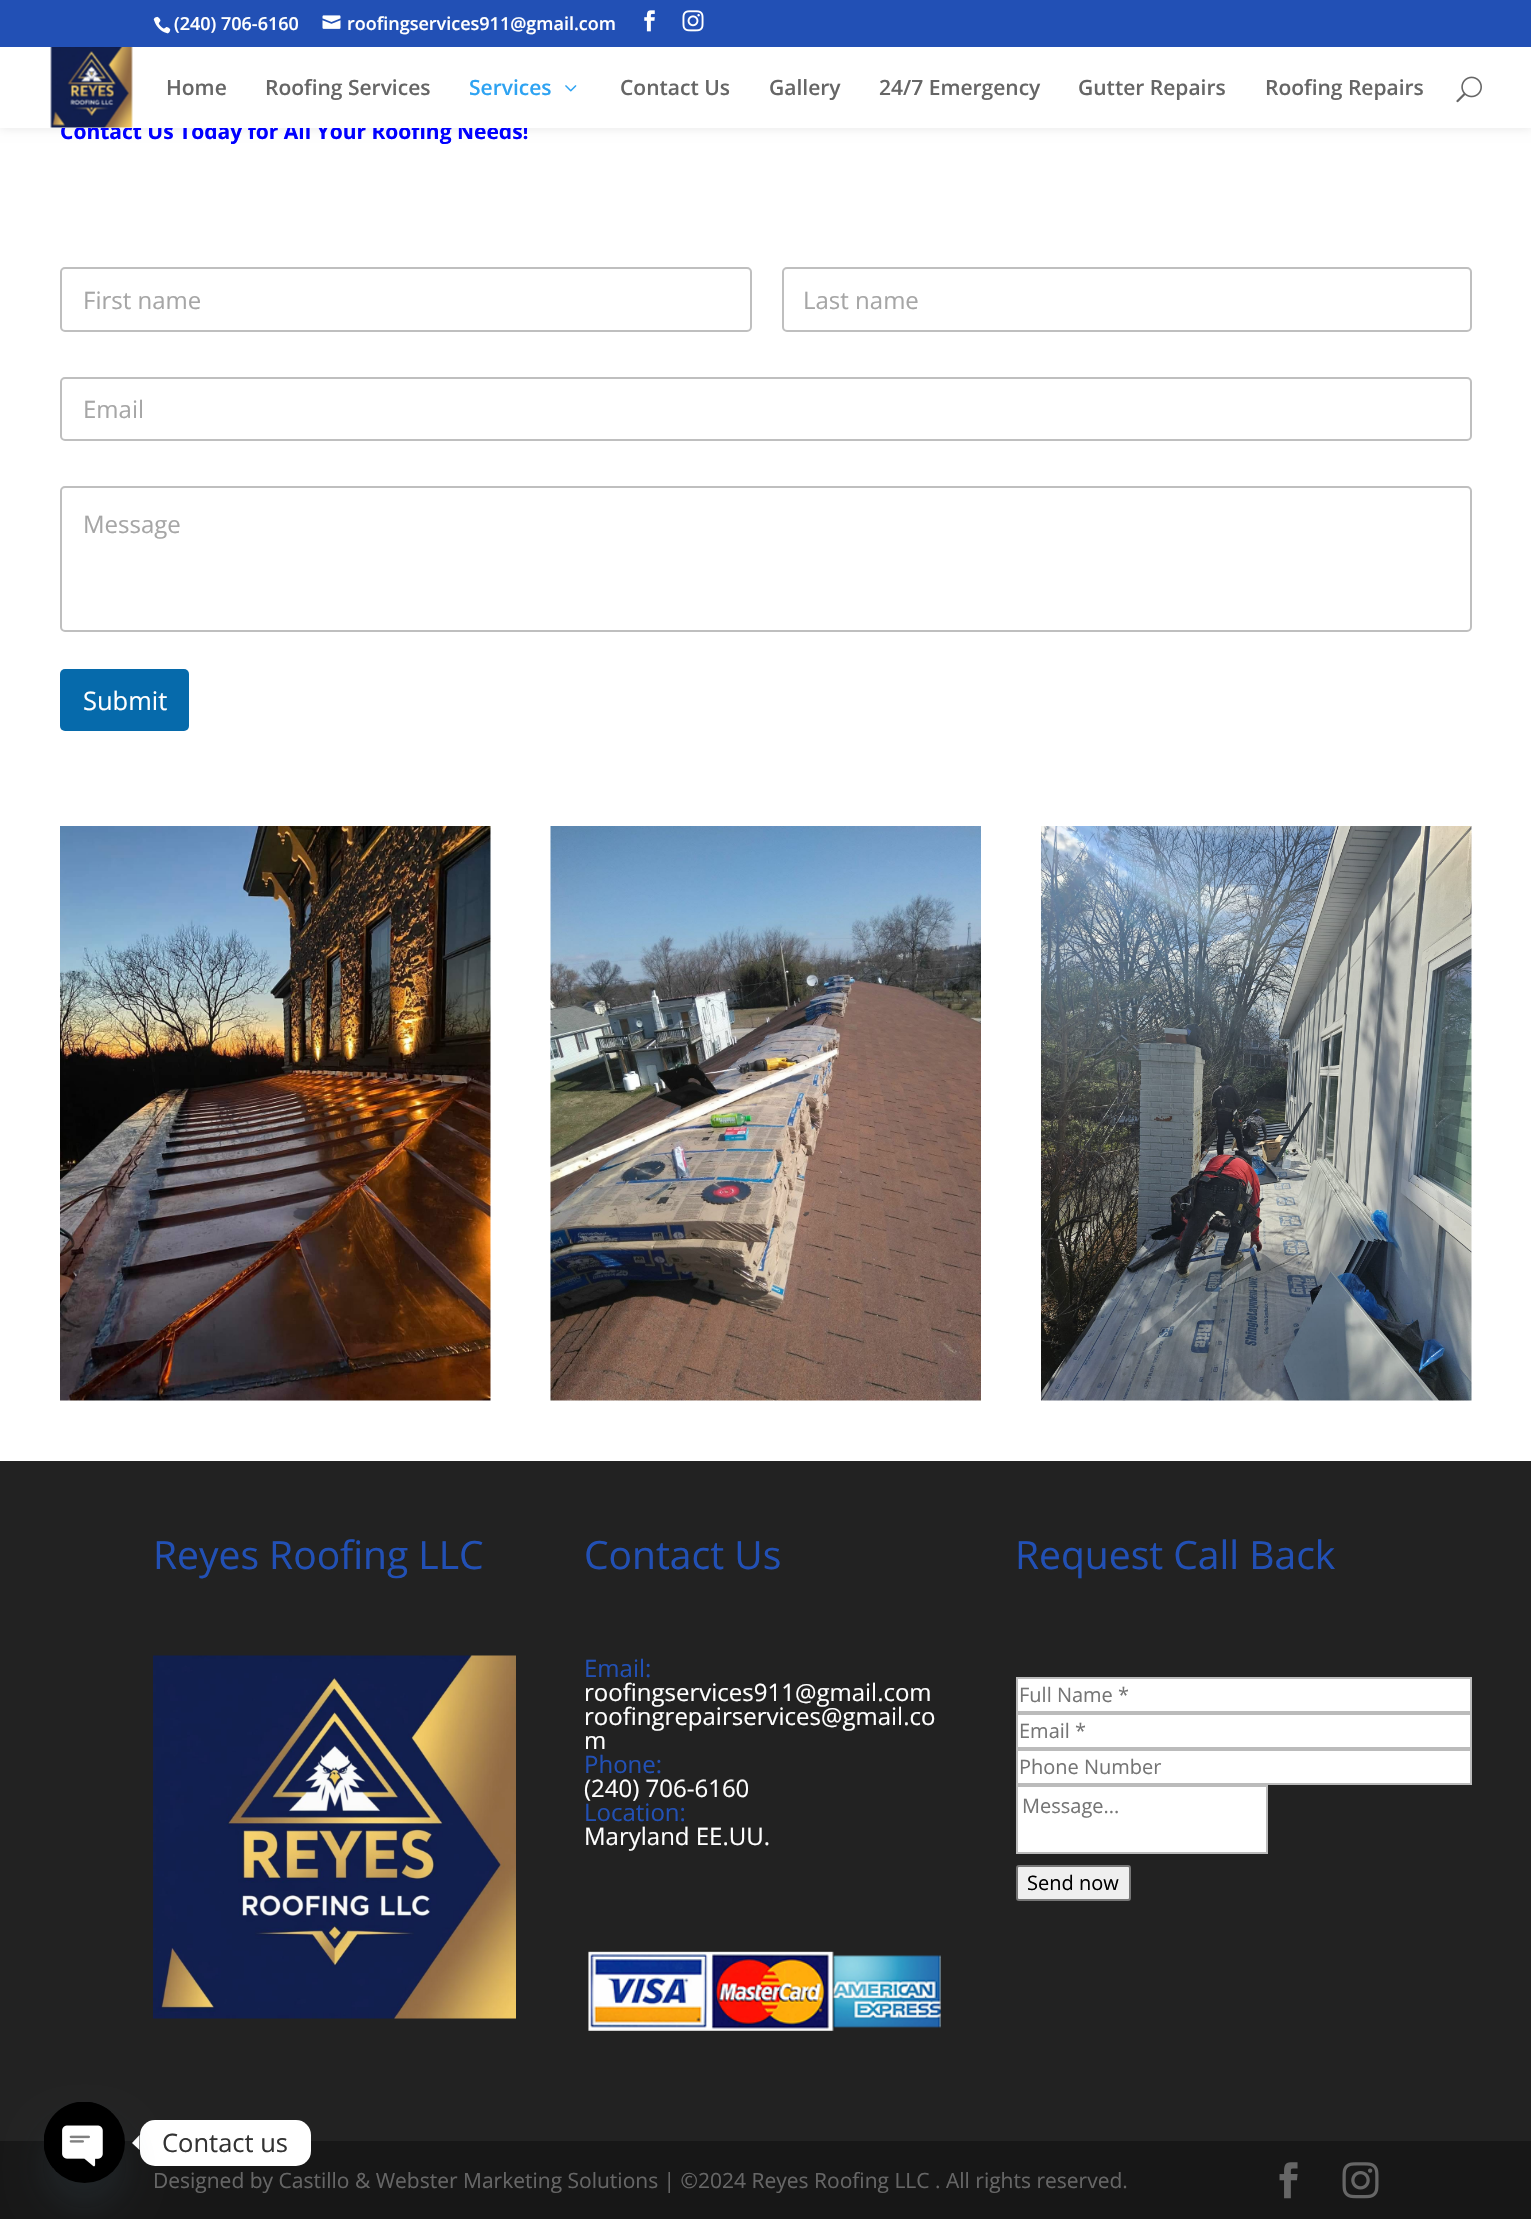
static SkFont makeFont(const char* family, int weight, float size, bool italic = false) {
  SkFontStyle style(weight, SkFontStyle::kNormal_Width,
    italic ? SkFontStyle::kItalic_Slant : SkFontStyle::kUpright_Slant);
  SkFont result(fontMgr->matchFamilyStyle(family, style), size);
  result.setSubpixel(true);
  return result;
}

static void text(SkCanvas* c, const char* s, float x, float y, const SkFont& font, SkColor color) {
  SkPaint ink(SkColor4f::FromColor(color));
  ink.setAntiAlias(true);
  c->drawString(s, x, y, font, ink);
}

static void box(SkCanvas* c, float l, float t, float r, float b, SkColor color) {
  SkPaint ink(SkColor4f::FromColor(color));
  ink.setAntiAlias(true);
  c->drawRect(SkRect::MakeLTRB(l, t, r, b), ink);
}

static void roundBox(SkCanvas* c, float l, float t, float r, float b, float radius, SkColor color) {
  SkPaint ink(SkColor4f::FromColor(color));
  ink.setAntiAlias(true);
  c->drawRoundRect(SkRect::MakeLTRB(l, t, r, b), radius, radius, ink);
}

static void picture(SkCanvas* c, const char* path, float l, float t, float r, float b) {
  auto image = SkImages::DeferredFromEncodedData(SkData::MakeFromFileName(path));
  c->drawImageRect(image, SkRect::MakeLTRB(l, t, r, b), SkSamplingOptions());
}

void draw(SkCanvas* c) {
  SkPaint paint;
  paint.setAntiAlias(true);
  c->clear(0xffffffff);
  paint.setColor(0x1a000000);
  paint.setMaskFilter(SkMaskFilter::MakeBlur(kNormal_SkBlurStyle, 5));
  c->drawRect(SkRect::MakeLTRB(0, 47, 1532, 128), paint);
  paint.setMaskFilter(nullptr);
  box(c, 0, 0, 1531, 47, 0xff2250b5);
  picture(c, "img_01.png", 153, 16, 171, 34);
  SkFont face1 = makeFont("Open Sans", 600, 18);
  text(c, "(240) 706-6160", 174, 30, face1, 0xffffffff);
  picture(c, "img_02.png", 322, 15, 341, 29);
  text(c, "roofingservices911@gmail.com", 347, 30, face1, 0xffffffff);
  picture(c, "img_03.png", 644, 10, 655, 32);
  picture(c, "img_04.png", 682, 10, 704, 32);
  SkFont face2 = makeFont("Open Sans", 700, 21);
  text(c, "Contact Us Today for All Your Roofing Needs!", 60, 139, face2, 0xff0000ff);
  box(c, 0, 47, 1531, 128, 0xffffffff);
  picture(c, "img_05.png", 50, 47, 133, 128);
  SkFont face3 = makeFont("Open Sans", 600, 21);
  text(c, "Home", 166, 95, face3, 0xff666666);
  text(c, "Roofing Services", 265, 95, face3, 0xff666666);
  text(c, "Services", 469, 95, face3, 0xff2ea3f2);
  picture(c, "img_06.png", 565, 85, 577, 92);
  text(c, "Contact Us", 620, 95, face3, 0xff666666);
  text(c, "Gallery", 769, 95, face3, 0xff666666);
  text(c, "24/7 Emergency", 879, 95, face3, 0xff666666);
  text(c, "Gutter Repairs", 1078, 95, face3, 0xff666666);
  text(c, "Roofing Repairs", 1265, 95, face3, 0xff666666);
  picture(c, "img_07.png", 1456, 76, 1482, 103);
  paint.setStyle(SkPaint::kStroke_Style);
  paint.setStrokeWidth(2);
  paint.setColor(0xffbfbfbf);
  c->drawRoundRect(SkRect::MakeLTRB(61, 268, 751, 331), 4, 4, paint);
  SkFont face4 = makeFont("Open Sans", 400, 24);
  text(c, "First name", 83, 309, face4, 0xffa6a6a6);
  c->drawRoundRect(SkRect::MakeLTRB(783, 268, 1471, 331), 4, 4, paint);
  text(c, "Last name", 803, 309, face4, 0xffa6a6a6);
  c->drawRoundRect(SkRect::MakeLTRB(61, 378, 1471, 440), 4, 4, paint);
  text(c, "Email", 83, 418, face4, 0xffa6a6a6);
  c->drawRoundRect(SkRect::MakeLTRB(61, 487, 1471, 631), 4, 4, paint);
  text(c, "Message", 83, 533, face4, 0xffa6a6a6);
  roundBox(c, 60, 669, 189, 731, 5, 0xff066aab);
  SkFont face5 = makeFont("Open Sans", 400, 25.5f);
  text(c, "Submit", 83, 710, face5, 0xffffffff);
  picture(c, "img_08.png", 60, 826, 491, 1401);
  picture(c, "img_09.png", 550, 826, 981, 1401);
  picture(c, "img_10.png", 1041, 826, 1472, 1401);
  box(c, 0, 1461, 1531, 2141, 0xff222222);
  SkFont face6 = makeFont("Open Sans", 400, 39);
  text(c, "Reyes Roofing LLC", 153, 1569, face6, 0xff2250b5);
  picture(c, "img_11.png", 153, 1655, 516, 2019);
  text(c, "Contact Us", 584, 1569, face6, 0xff2250b5);
  text(c, "Email:", 584, 1677, face4, 0xff2250b5);
  text(c, "roofingservices911@gmail.com", 584, 1701, face4, 0xffffffff);
  text(c, "roofingrepairservices@gmail.co", 584, 1725, face4, 0xffffffff);
  text(c, "m", 584, 1749, face4, 0xffffffff);
  text(c, "Phone:", 584, 1773, face4, 0xff2250b5);
  text(c, "(240) 706-6160", 584, 1797, face4, 0xffffffff);
  text(c, "Location:", 584, 1821, face4, 0xff2250b5);
  text(c, "Maryland EE.UU.", 584, 1845, face4, 0xffffffff);
  picture(c, "img_12.png", 588, 1951, 941, 2031);
  text(c, "Request Call Back", 1015, 1569, face6, 0xff2250b5);
  paint.setStyle(SkPaint::kFill_Style);
  paint.setColor(0xffffffff);
  c->drawRect(SkRect::MakeLTRB(1017, 1678, 1471, 1712), paint);
  paint.setStyle(SkPaint::kStroke_Style);
  paint.setColor(0xffbbbbbb);
  c->drawRect(SkRect::MakeLTRB(1017, 1678, 1471, 1712), paint);
  SkFont face7 = makeFont("Open Sans", 400, 20);
  text(c, "Full Name *", 1019, 1702, face7, 0xff757575);
  paint.setStyle(SkPaint::kFill_Style);
  paint.setColor(0xffffffff);
  c->drawRect(SkRect::MakeLTRB(1017, 1714, 1471, 1748), paint);
  paint.setStyle(SkPaint::kStroke_Style);
  paint.setColor(0xffbbbbbb);
  c->drawRect(SkRect::MakeLTRB(1017, 1714, 1471, 1748), paint);
  text(c, "Email *", 1019, 1738, face7, 0xff757575);
  paint.setStyle(SkPaint::kFill_Style);
  paint.setColor(0xffffffff);
  c->drawRect(SkRect::MakeLTRB(1017, 1750, 1471, 1784), paint);
  paint.setStyle(SkPaint::kStroke_Style);
  paint.setColor(0xffbbbbbb);
  c->drawRect(SkRect::MakeLTRB(1017, 1750, 1471, 1784), paint);
  text(c, "Phone Number", 1019, 1774, face7, 0xff757575);
  paint.setStyle(SkPaint::kFill_Style);
  paint.setColor(0xffffffff);
  c->drawRect(SkRect::MakeLTRB(1017, 1786, 1267, 1853), paint);
  paint.setStyle(SkPaint::kStroke_Style);
  paint.setColor(0xffbbbbbb);
  c->drawRect(SkRect::MakeLTRB(1017, 1786, 1267, 1853), paint);
  text(c, "Message...", 1022, 1813, face7, 0xff757575);
  paint.setStyle(SkPaint::kFill_Style);
  paint.setColor(0xffefefef);
  c->drawRoundRect(SkRect::MakeLTRB(1017, 1866, 1130, 1900), 2, 2, paint);
  paint.setStyle(SkPaint::kStroke_Style);
  paint.setColor(0xff767676);
  c->drawRoundRect(SkRect::MakeLTRB(1017, 1866, 1130, 1900), 2, 2, paint);
  text(c, "Send now", 1027, 1890, face7, 0xff000000);
  box(c, 0, 2141, 1531, 2219, 0xff171717);
  SkFont face8 = makeFont("Open Sans", 400, 21);
  text(c, "Designed by Castillo & Webster Marketing Solutions | ©2024 Reyes Roofing LLC . All rights reserved.", 153, 2188, face8, 0xff666666);
  picture(c, "img_13.png", 1279, 2162, 1298, 2199);
  picture(c, "img_14.png", 1342, 2162, 1379, 2199);
  roundBox(c, 140, 2120, 311, 2166, 15, 0xffffffff);
  paint.setStyle(SkPaint::kFill_Style);
  paint.setColor(0xffffffff);
  c->drawPath(SkPathBuilder().moveTo(139.5f, 2135).lineTo(139.5f, 2150).lineTo(132, 2143).close().detach(), paint);
  paint.setColor(0x2949687e);
  paint.setMaskFilter(SkMaskFilter::MakeBlur(kNormal_SkBlurStyle, 18));
  c->drawRoundRect(SkRect::MakeLTRB(44, 2126, 125, 2207), 40.5f, 40.5f, paint);
  paint.setMaskFilter(nullptr);
  paint.setColor(0xff000000);
  c->drawCircle(84.5f, 2142.5f, 40.5f, paint);
  picture(c, "img_15.png", 44, 2102, 111, 2168);
  text(c, "Contact us", 162, 2152, face5, 0xff333333);
}
